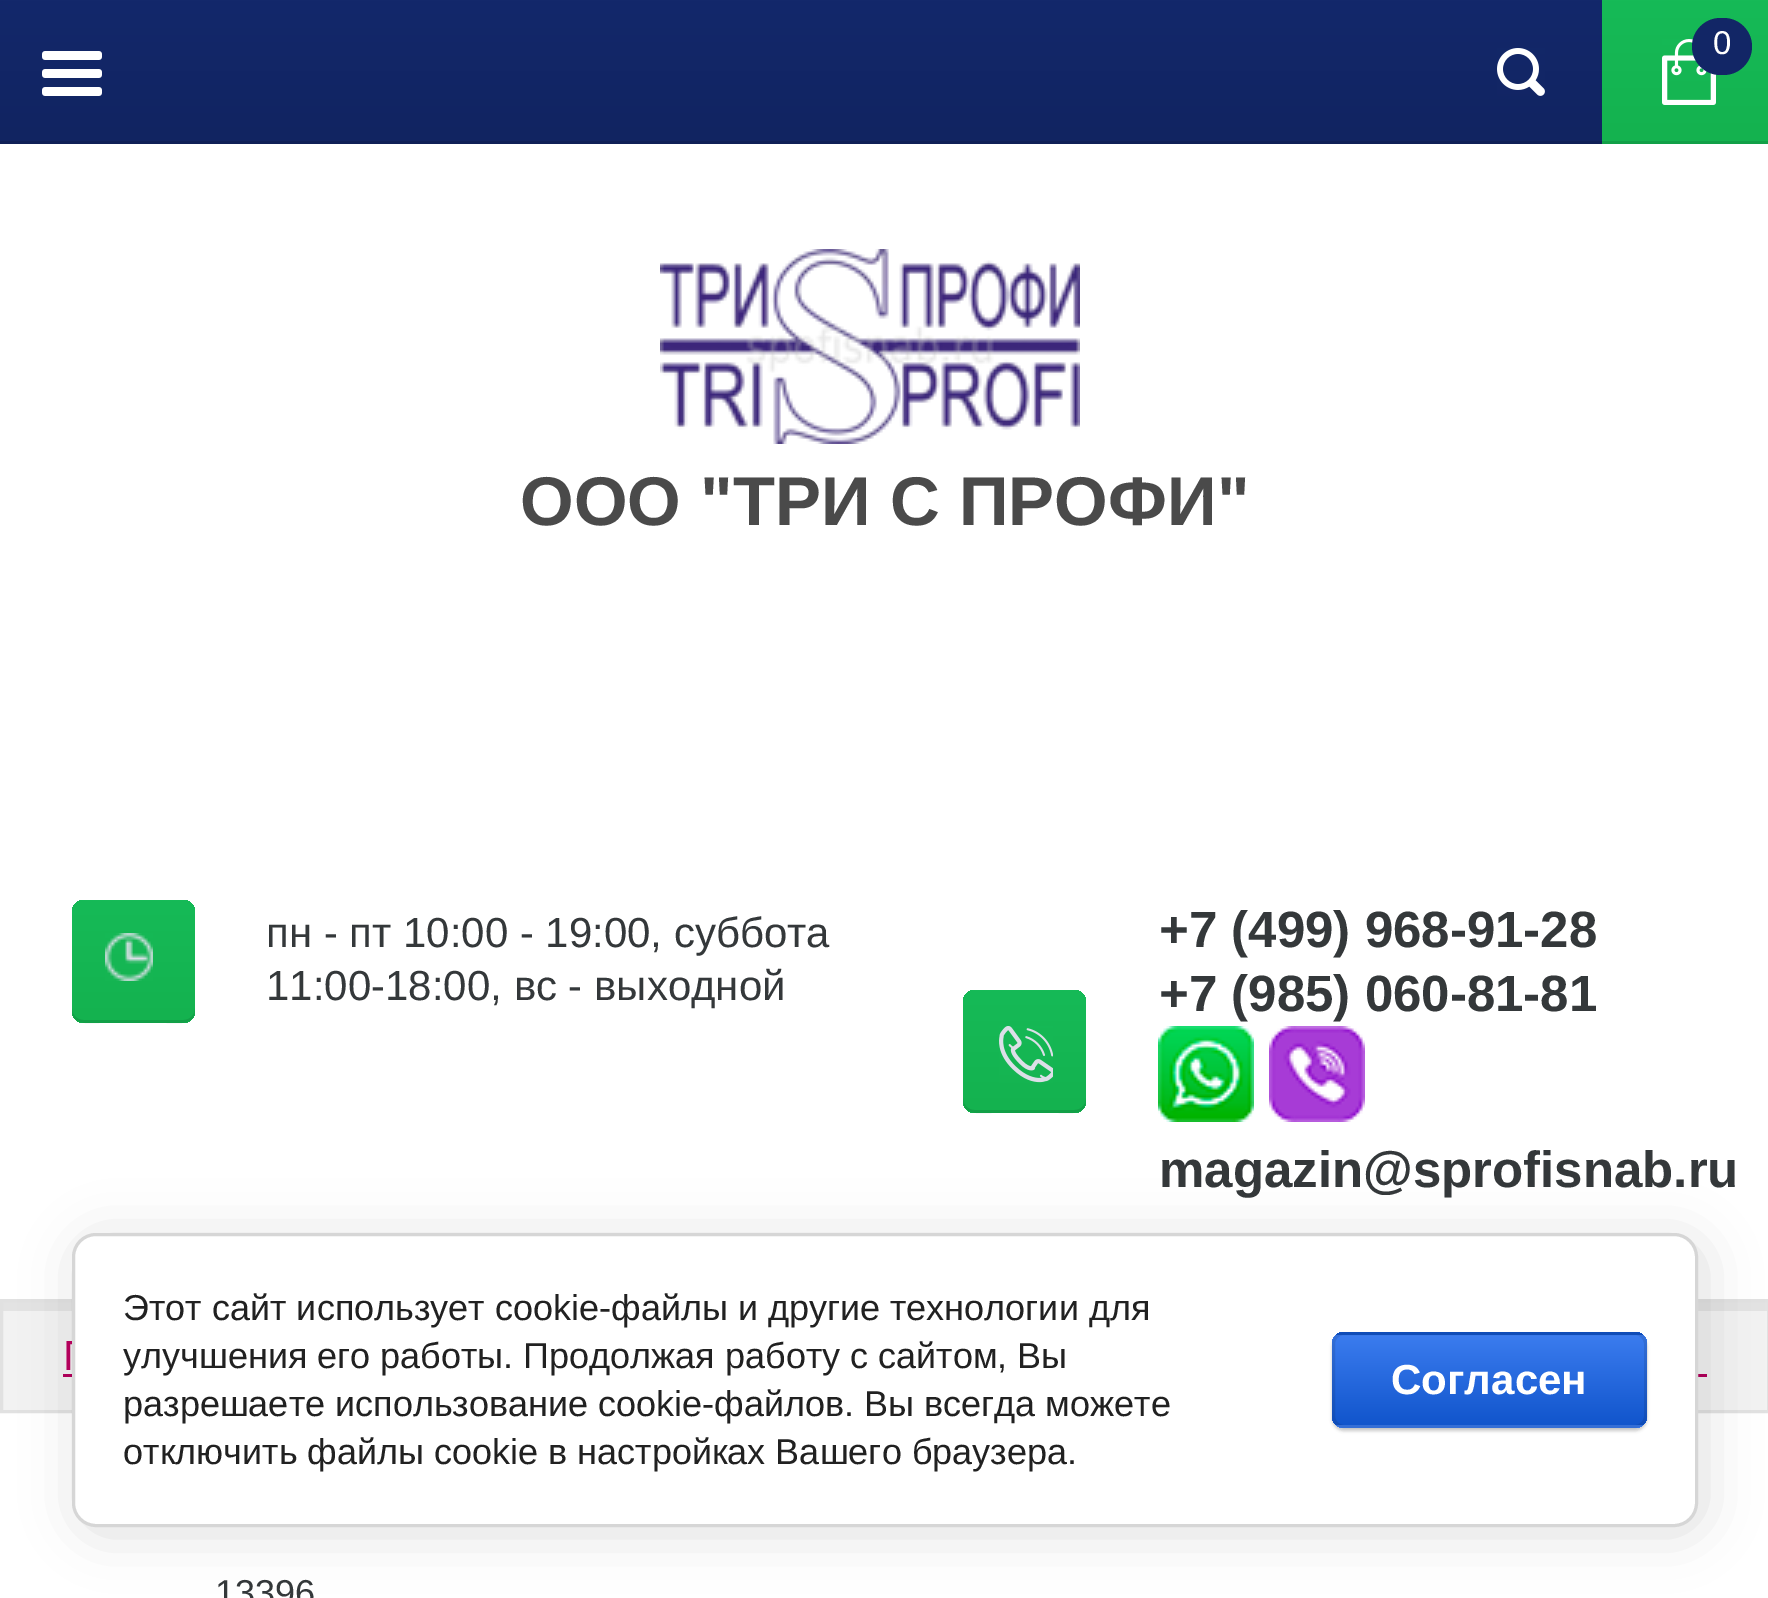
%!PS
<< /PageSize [1768 1598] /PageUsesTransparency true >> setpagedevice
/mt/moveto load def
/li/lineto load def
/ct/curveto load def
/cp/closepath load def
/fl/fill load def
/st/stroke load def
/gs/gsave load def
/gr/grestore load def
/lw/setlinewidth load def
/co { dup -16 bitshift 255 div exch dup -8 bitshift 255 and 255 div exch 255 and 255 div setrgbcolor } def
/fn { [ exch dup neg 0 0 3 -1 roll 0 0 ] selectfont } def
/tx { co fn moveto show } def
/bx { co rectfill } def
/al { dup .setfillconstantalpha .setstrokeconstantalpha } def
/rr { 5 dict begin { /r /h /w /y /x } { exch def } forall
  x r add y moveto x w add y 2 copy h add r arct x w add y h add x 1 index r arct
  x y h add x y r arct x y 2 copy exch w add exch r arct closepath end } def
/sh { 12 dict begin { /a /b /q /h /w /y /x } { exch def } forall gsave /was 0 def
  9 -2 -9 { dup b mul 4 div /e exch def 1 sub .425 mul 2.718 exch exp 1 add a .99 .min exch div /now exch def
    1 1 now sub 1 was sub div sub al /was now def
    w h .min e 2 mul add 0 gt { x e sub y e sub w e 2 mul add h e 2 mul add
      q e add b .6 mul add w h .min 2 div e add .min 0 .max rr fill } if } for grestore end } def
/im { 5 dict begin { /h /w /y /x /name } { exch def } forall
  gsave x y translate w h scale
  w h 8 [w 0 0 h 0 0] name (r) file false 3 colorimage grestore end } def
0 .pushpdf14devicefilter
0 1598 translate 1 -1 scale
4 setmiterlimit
0 0 1768 1598 16#FFFFFF bx
gs 0 0 mt 1602 0 li 1602 141 li 0 141 li cp clip newpath
<< /ShadingType 2 /ColorSpace /DeviceRGB /Coords [885 144 885 0] /Extend [true true] /Function << /FunctionType 2 /Domain [0 1] /C0 [.067 .141 .38] /C1 [.075 .157 .42] /N 1 >> >> shfill gr
0 141 1602 3 16#0F2057 bx
gs 1602 0 mt 1768 0 li 1768 141 li 1602 141 li cp clip newpath
<< /ShadingType 2 /ColorSpace /DeviceRGB /Coords [1686 144 1686 0] /Extend [true true] /Function << /FunctionType 2 /Domain [0 1] /C0 [.078 .698 .31] /C1 [.086 .729 .341] /N 1 >> >> shfill gr
1602 141 166 3 16#12A047 bx
(media/1.raw) 1662 39 54 66 im
16#122666 co
1692 18 60 57 28.5 rr fl
(media/2.raw) 1497 48 48 48 im
(media/3.raw) 42 51 60 45 im
(media/4.raw) 660 249 420 195 im
gs 72 900 123 123 12 rr clip newpath
<< /ShadingType 2 /ColorSpace /DeviceRGB /Coords [134 1023 134 900] /Extend [true true] /Function << /FunctionType 2 /Domain [0 1] /C0 [.078 .698 .31] /C1 [.086 .729 .341] /N 1 >> >> shfill gr
0.1 al
16#000000 co
72 1008 mt 72 1026 86 1023 100 1023 ct 166 1023 li 181 1023 195 1026 195 1008 ct 195 1015 190 1020 183 1020 ct 84 1020 li 77 1020 72 1015 72 1008 ct cp fl
1 al
(media/5.raw) 105 933 48 48 im
gs 963 990 123 123 12 rr clip newpath
<< /ShadingType 2 /ColorSpace /DeviceRGB /Coords [1025 1113 1025 990] /Extend [true true] /Function << /FunctionType 2 /Domain [0 1] /C0 [.078 .698 .31] /C1 [.086 .729 .341] /N 1 >> >> shfill gr
0.1 al
963 1098 mt 963 1116 977 1113 992 1113 ct 1058 1113 li 1072 1113 1086 1116 1086 1098 ct 1086 1105 1081 1110 1074 1110 ct 975 1110 li 968 1110 963 1105 963 1098 ct cp fl
1 al
(media/6.raw) 999 1026 54 57 im
(media/7.raw) 1158 1026 96 96 im
(media/8.raw) 1269 1026 96 96 im
3 1311 1764 99 16#F2F2F2 bx
3 1302 1764 9 16#E3E3E3 bx
16#E1E1E1 co
3 lw
1.5 1300.5 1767 111 rectstroke
63 1374 9 3 16#B3005B bx
1698 1374 9 3 16#B3005B bx
16#000000 co
78 1239 1626 294 24 27 .14 sh
(0) 1713 54 /LiberationSans-Regular 33 16#FFFFFF tx
(ООО "ТРИ С ПРОФИ") 520 525 /LiberationSans-Bold 69 16#4A4A4A tx
(пн - пт 10:00 - 19:00, суббота) 266 947 /LiberationSans-Regular 42 16#34383A tx
(11:00-18:00, вс - выходной) 266 1000 /LiberationSans-Regular 42 16#34383A tx
(+7 \(499\) 968-91-28) 1159 947 /LiberationSans-Bold 51 16#34383A tx
(+7 \(985\) 060-81-81) 1159 1011 /LiberationSans-Bold 51 16#34383A tx
(magazin@sprofisnab.ru) 1159 1187 /LiberationSans-Bold 51 16#34383A tx
(Г) 63 1370 /LiberationSans-Regular 42 16#B3005B tx
(13396) 215 1605 /LiberationSans-Regular 36 16#34383A tx
16#FFFFFF co
73.5 1234.5 1623 291 22.5 rr gs fl gr
16#D6D6D6 co
st
(Этот сайт использует cookie-файлы и другие технологии для) 123 1320 /LiberationSans-Regular 36 16#212121 tx
(улучшения его работы. Продолжая работу с сайтом, Вы) 123 1368 /LiberationSans-Regular 36 16#212121 tx
(разрешаете использование cookie-файлов. Вы всегда можете) 123 1416 /LiberationSans-Regular 36 16#212121 tx
(отключить файлы cookie в настройках Вашего браузера.) 123 1464 /LiberationSans-Regular 36 16#212121 tx
16#000000 co
1332 1335 315 96 12 1.5 .2 sh
gs
1332 1332 315 96 12 rr clip newpath
gs 1332 1332 mt 1647 1332 li 1647 1335 li 1332 1335 li cp clip newpath
<< /ShadingType 2 /ColorSpace /DeviceRGB /Coords [1490 1245 1490 1335] /Extend [true true] /Function << /FunctionType 2 /Domain [0 1] /C0 [.231 .486 .937] /C1 [.067 .333 .8] /N 1 >> >> shfill gr
gs 1332 1335 mt 1647 1335 li 1647 1425 li 1332 1425 li cp clip newpath
<< /ShadingType 2 /ColorSpace /DeviceRGB /Coords [1490 1335 1490 1425] /Extend [true true] /Function << /FunctionType 2 /Domain [0 1] /C0 [.231 .486 .937] /C1 [.067 .333 .8] /N 1 >> >> shfill gr
gs 1332 1425 mt 1647 1425 li 1647 1428 li 1332 1428 li cp clip newpath
<< /ShadingType 2 /ColorSpace /DeviceRGB /Coords [1490 1425 1490 1515] /Extend [true true] /Function << /FunctionType 2 /Domain [0 1] /C0 [.231 .486 .937] /C1 [.067 .333 .8] /N 1 >> >> shfill gr
gr
0.1 al
1333.5 1333.5 312 93 10.5 rr st
1 al
(Согласен) 1391 1394 /LiberationSans-Bold 42 16#FFFFFF tx
.poppdf14devicefilter showpage
